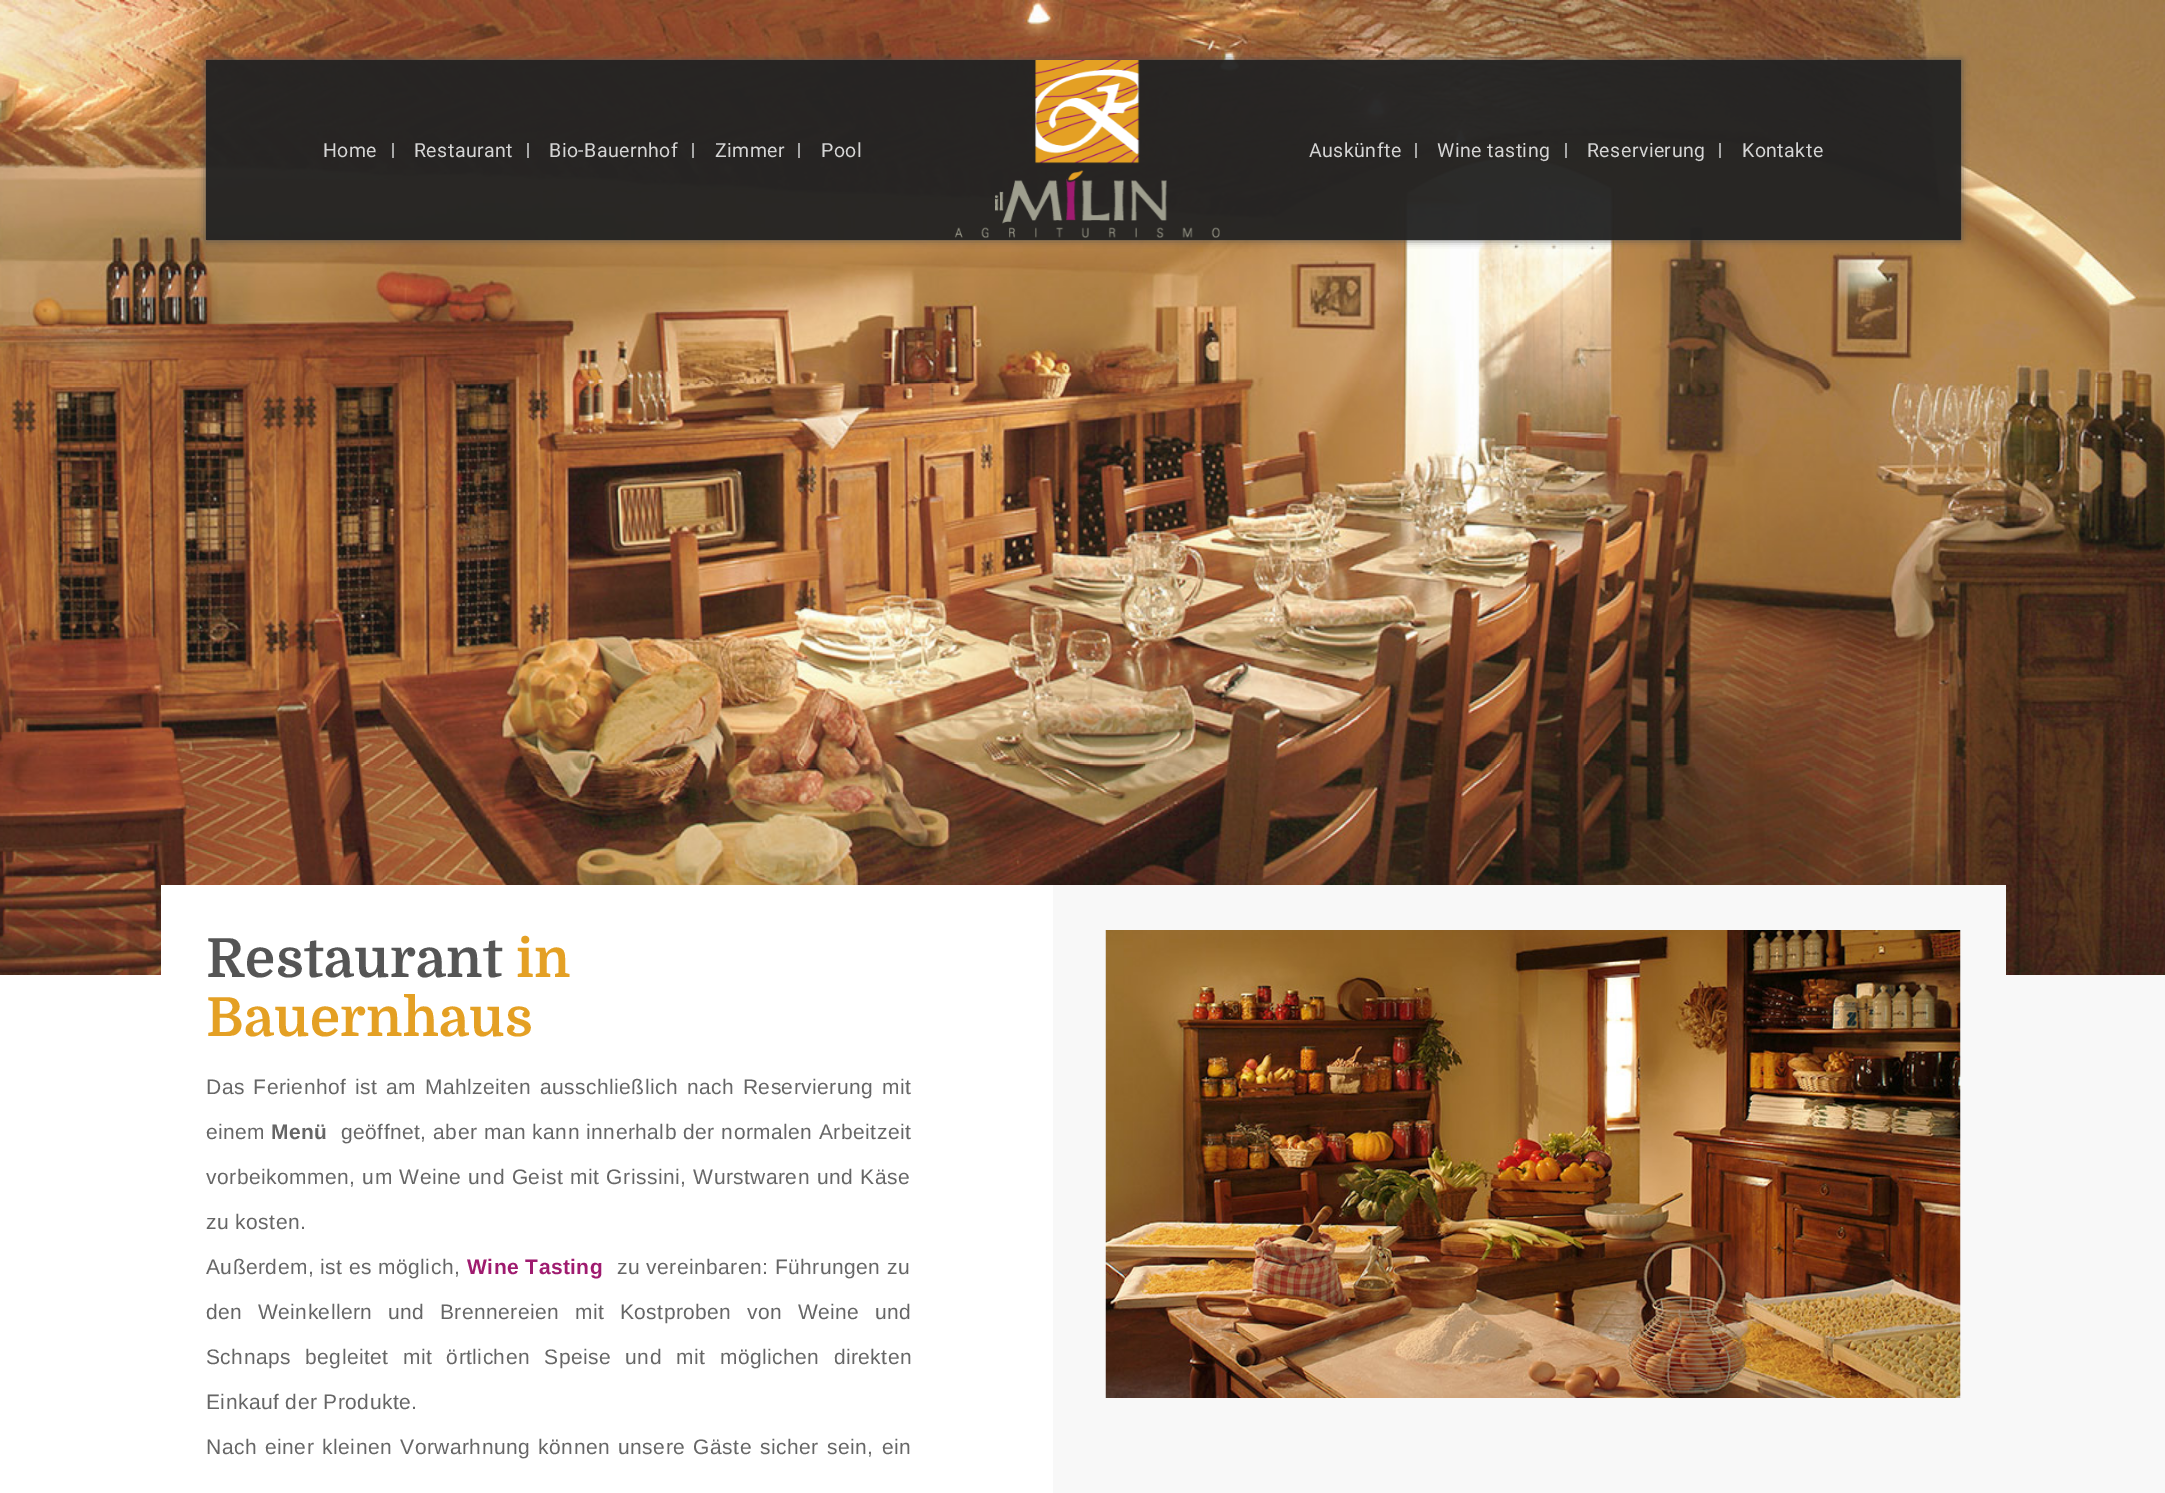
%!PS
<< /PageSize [2165 1493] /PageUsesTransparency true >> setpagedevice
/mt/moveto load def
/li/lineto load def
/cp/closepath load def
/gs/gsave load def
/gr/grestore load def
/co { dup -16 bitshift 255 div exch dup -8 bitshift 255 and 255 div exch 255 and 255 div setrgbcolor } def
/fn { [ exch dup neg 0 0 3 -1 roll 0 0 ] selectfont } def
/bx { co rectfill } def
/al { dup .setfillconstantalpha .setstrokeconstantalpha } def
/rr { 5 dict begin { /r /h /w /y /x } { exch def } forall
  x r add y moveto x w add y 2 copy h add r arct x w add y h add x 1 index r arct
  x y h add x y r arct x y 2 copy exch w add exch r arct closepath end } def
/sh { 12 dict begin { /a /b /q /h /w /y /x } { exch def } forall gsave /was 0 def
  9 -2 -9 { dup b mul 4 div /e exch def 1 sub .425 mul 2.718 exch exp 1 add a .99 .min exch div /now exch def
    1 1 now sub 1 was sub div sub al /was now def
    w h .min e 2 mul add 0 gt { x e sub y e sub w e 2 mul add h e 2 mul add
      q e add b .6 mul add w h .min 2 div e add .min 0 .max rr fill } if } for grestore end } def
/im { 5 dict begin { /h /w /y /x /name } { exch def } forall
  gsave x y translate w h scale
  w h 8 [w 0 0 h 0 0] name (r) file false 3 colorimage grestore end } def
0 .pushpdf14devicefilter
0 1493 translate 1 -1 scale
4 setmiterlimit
0 0 2165 1493 16#FFFFFF bx
(media/1.raw) 0 0 2165 975 im
gs
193 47 mt 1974 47 li 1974 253 li 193 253 li cp 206 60 mt 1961 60 li 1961 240 li 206 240 li cp eoclip newpath
16#505050 co
206 60 1755 180 0 4 1 sh
gr
0.96 al
206 60 1755 180 16#232323 bx
1 al
392 143 2 15 16#A7A7A7 bx
527 143 2 15 16#A7A7A7 bx
692 143 2 15 16#A7A7A7 bx
798 143 2 15 16#A7A7A7 bx
(media/2.raw) 954 60 266 178 im
1415 143 2 15 16#A7A7A7 bx
1565 143 2 15 16#A7A7A7 bx
1719 143 2 15 16#A7A7A7 bx
161 885 892 90 16#FFFFFF bx
1053 885 953 608 16#F8F8F8 bx
(media/3.raw) 1105 930 856 468 im
2006 975 159 518 16#F8F8F8 bx
/Roboto-Regular 19.5 fn
16#D5D5D5 co
323 157 mt .45 0 (Home) ashow
414 157 mt .45 0 (Restaurant) ashow
549 157 mt .45 0 (Bio-Bauernhof) ashow
715 157 mt .45 0 (Zimmer) ashow
821 157 mt .45 0 (Pool) ashow
1309 157 mt .45 0 (Auskünfte) ashow
1437 157 mt .45 0 (Wine tasting) ashow
1587 157 mt .45 0 (Reservierung) ashow
1742 157 mt .45 0 (Kontakte) ashow
/Domine-Bold 54 fn
16#555555 co
206 977 mt .45 0 (Restaurant) ashow
16#E4A024 co
516 977 mt .45 0 (in) ashow
206 1036 mt .45 0 (Bauernhaus) ashow
/LiberationSans-Regular 21 fn
16#666666 co
206 1094 mt 2.5 0 32 .45 0 (Das Ferienhof ist am Mahlzeiten ausschließlich nach Reservierung mit) awidthshow
206 1139 mt .45 0 (einem) ashow
/LiberationSans-Bold 21 fn
271 1139 mt .45 0 (Menü) ashow
/LiberationSans-Regular 21 fn
341 1139 mt .25 0 32 .45 0 (geöffnet, aber man kann innerhalb der normalen Arbeitzeit) awidthshow
206 1184 mt .75 0 32 .45 0 (vorbeikommen, um Weine und Geist mit Grissini, Wurstwaren und Käse) awidthshow
206 1229 mt .45 0 (zu kosten.) ashow
206 1274 mt .45 0 (Außerdem, ist es möglich,) ashow
/LiberationSans-Bold 21 fn
16#9F1B6F co
467 1274 mt .45 0 (Wine Tasting) ashow
/LiberationSans-Regular 21 fn
16#666666 co
617 1274 mt .45 0 (zu vereinbaren: Führungen zu) ashow
206 1319 mt 9.25 0 32 .45 0 (den Weinkellern und Brennereien mit Kostproben von Weine und) awidthshow
206 1364 mt 8 0 32 .45 0 (Schnaps begleitet mit örtlichen Speise und mit möglichen direkten) awidthshow
206 1409 mt .45 0 (Einkauf der Produkte.) ashow
206 1454 mt 2 0 32 .45 0 (Nach einer kleinen Vorwarhnung können unsere Gäste sicher sein, ein) awidthshow
.poppdf14devicefilter showpage
